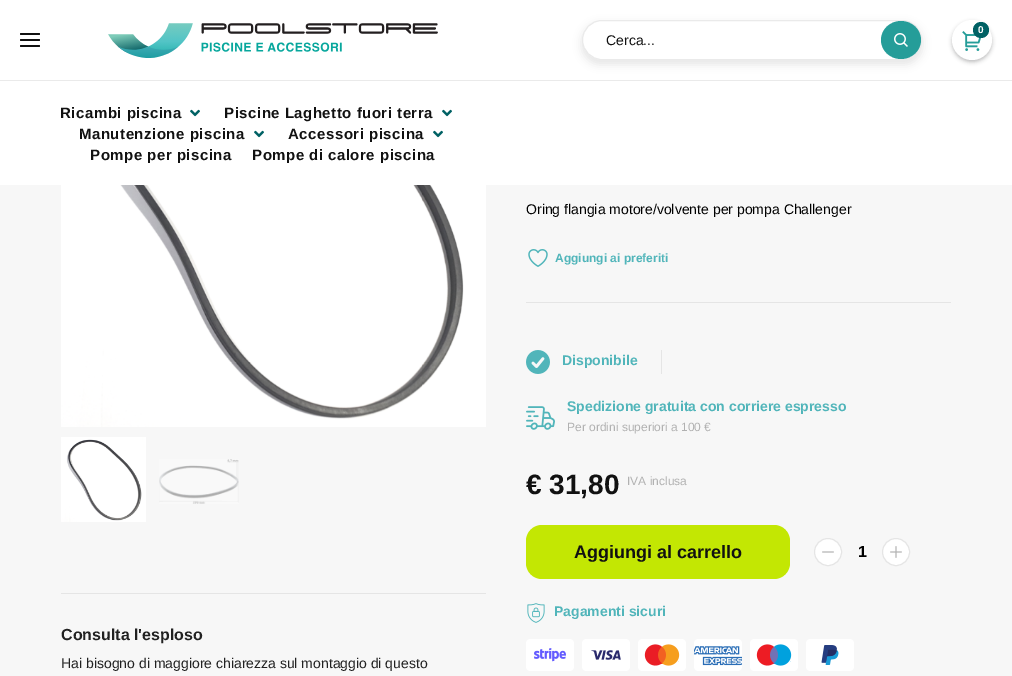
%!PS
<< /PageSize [1012 676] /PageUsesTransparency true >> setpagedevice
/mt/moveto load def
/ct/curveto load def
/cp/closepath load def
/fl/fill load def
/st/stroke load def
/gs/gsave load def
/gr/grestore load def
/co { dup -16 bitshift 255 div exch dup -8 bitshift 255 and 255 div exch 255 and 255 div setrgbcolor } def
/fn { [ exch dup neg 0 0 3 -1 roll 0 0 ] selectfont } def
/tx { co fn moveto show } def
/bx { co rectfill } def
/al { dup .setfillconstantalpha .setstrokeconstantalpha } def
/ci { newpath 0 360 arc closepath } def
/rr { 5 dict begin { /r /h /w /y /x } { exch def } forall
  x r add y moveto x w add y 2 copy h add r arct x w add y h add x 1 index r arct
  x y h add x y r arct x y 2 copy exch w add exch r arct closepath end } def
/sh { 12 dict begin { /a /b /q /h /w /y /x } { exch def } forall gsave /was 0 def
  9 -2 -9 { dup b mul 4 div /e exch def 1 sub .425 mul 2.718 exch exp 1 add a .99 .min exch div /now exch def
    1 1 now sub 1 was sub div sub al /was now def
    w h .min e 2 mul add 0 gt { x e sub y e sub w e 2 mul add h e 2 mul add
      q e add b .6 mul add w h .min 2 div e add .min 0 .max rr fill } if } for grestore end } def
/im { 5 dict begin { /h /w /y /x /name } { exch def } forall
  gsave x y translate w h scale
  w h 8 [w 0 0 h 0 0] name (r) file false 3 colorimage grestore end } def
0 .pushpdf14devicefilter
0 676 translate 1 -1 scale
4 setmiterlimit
0 0 1012 676 16#F7F7F7 bx
0 0 1012 185 16#FFFFFF bx
16#111111 co
20 33 20 2 1 rr fl
20 39 20 2 1 rr fl
20 45 20 2 1 rr fl
(media/1.raw) 108 23 330 35 im
16#202124 co
952 22 40 40 20 2 .28 sh
16#FFFFFF co
972 40 20 ci fl
(media/2.raw) 962 31 20 20 im
16#006164 co
981 30 8 ci fl
16#202124 co
581 23 342 42 21 4 .11 sh
16#FFFFFF co
582.5 20.5 339 39 19.5 rr gs fl gr
16#EAEAEA co
st
16#259D99 co
901 21 mt 912 21 921 29.5 921 40 ct 921 50.5 912 59 901 59 ct 890 59 881 50.5 881 40 ct 881 29.5 890 21 901 21 ct cp fl
(media/3.raw) 894 33 14 14 im
0 80 1012 1 16#EAEAEA bx
(media/4.raw) 190 109 10 8 im
(media/4.raw) 442 109 10 8 im
(media/4.raw) 254 130 10 8 im
(media/4.raw) 433 130 10 8 im
(media/5.raw) 528 249 20 18 im
526 302 425 1 16#E5E5E5 bx
661 350 1 24 16#E5E5E5 bx
(media/6.raw) 526 350 24 24 im
(media/7.raw) 526 406 29 24 im
16#C3E703 co
526 525 264 54 16 rr fl
16#FFFFFF co
828 552 13.5 ci gs fl gr
16#E5E5E5 co
st
(media/8.raw) 822 551 12 2 im
16#FFFFFF co
896 552 13.5 ci gs fl gr
16#E5E5E5 co
st
(media/9.raw) 890 546 12 12 im
(media/10.raw) 527 603 18 20 im
(media/11.raw) 526 639 48 32 im
(media/12.raw) 582 639 48 32 im
(media/13.raw) 638 639 48 32 im
(media/14.raw) 694 639 48 32 im
(media/15.raw) 750 639 48 32 im
(media/16.raw) 806 639 48 32 im
(media/17.raw) 61 185 425 242 im
(media/18.raw) 61 437 85 85 im
(media/19.raw) 159 459 80 45 im
61 593 425 1 16#E5E5E5 bx
(0) 978 33 /LiberationSans-Bold 10 16#FFFFFF tx
(Cerca...) 606 45 /LiberationSans-Regular 14 16#111111 tx
/LiberationSans-Bold 15 fn
60 118 mt .5 0 (Ricambi piscina) ashow
224 118 mt .5 0 (Piscine Laghetto fuori terra) ashow
79 139 mt .5 0 (Manutenzione piscina) ashow
288 139 mt .5 0 (Accessori piscina) ashow
90 160 mt .5 0 (Pompe per piscina) ashow
252 160 mt .5 0 (Pompe di calore piscina) ashow
(Oring flangia motore/volvente per pompa Challenger) 526 214 /LiberationSans-Regular 14 16#000000 tx
(Aggiungi ai preferiti) 555 262 /LiberationSans-Bold 12 16#51B5BA tx
(Disponibile) 562 365 /LiberationSans-Bold 14 16#51B5BA tx
(Spedizione gratuita con corriere espresso) 567 411 /LiberationSans-Bold 14 16#51B5BA tx
(Per ordini superiori a 100 €) 567 431 /LiberationSans-Regular 12 16#B1B1B1 tx
(€ 31,80) 526 494 /LiberationSans-Bold 28 16#111111 tx
(IVA inclusa) 627 485 /LiberationSans-Regular 12 16#B1B1B1 tx
(Aggiungi al carrello) 574 558 /LiberationSans-Bold 18 16#111111 tx
(1) 858 557 /LiberationSans-Bold 16 16#000000 tx
(Pagamenti sicuri) 554 616 /LiberationSans-Bold 14 16#51B5BA tx
(Consulta l'esploso) 61 640 /LiberationSans-Bold 16 16#212121 tx
(Hai bisogno di maggiore chiarezza sul montaggio di questo) 61 668 /LiberationSans-Regular 14 16#212121 tx
.poppdf14devicefilter showpage
